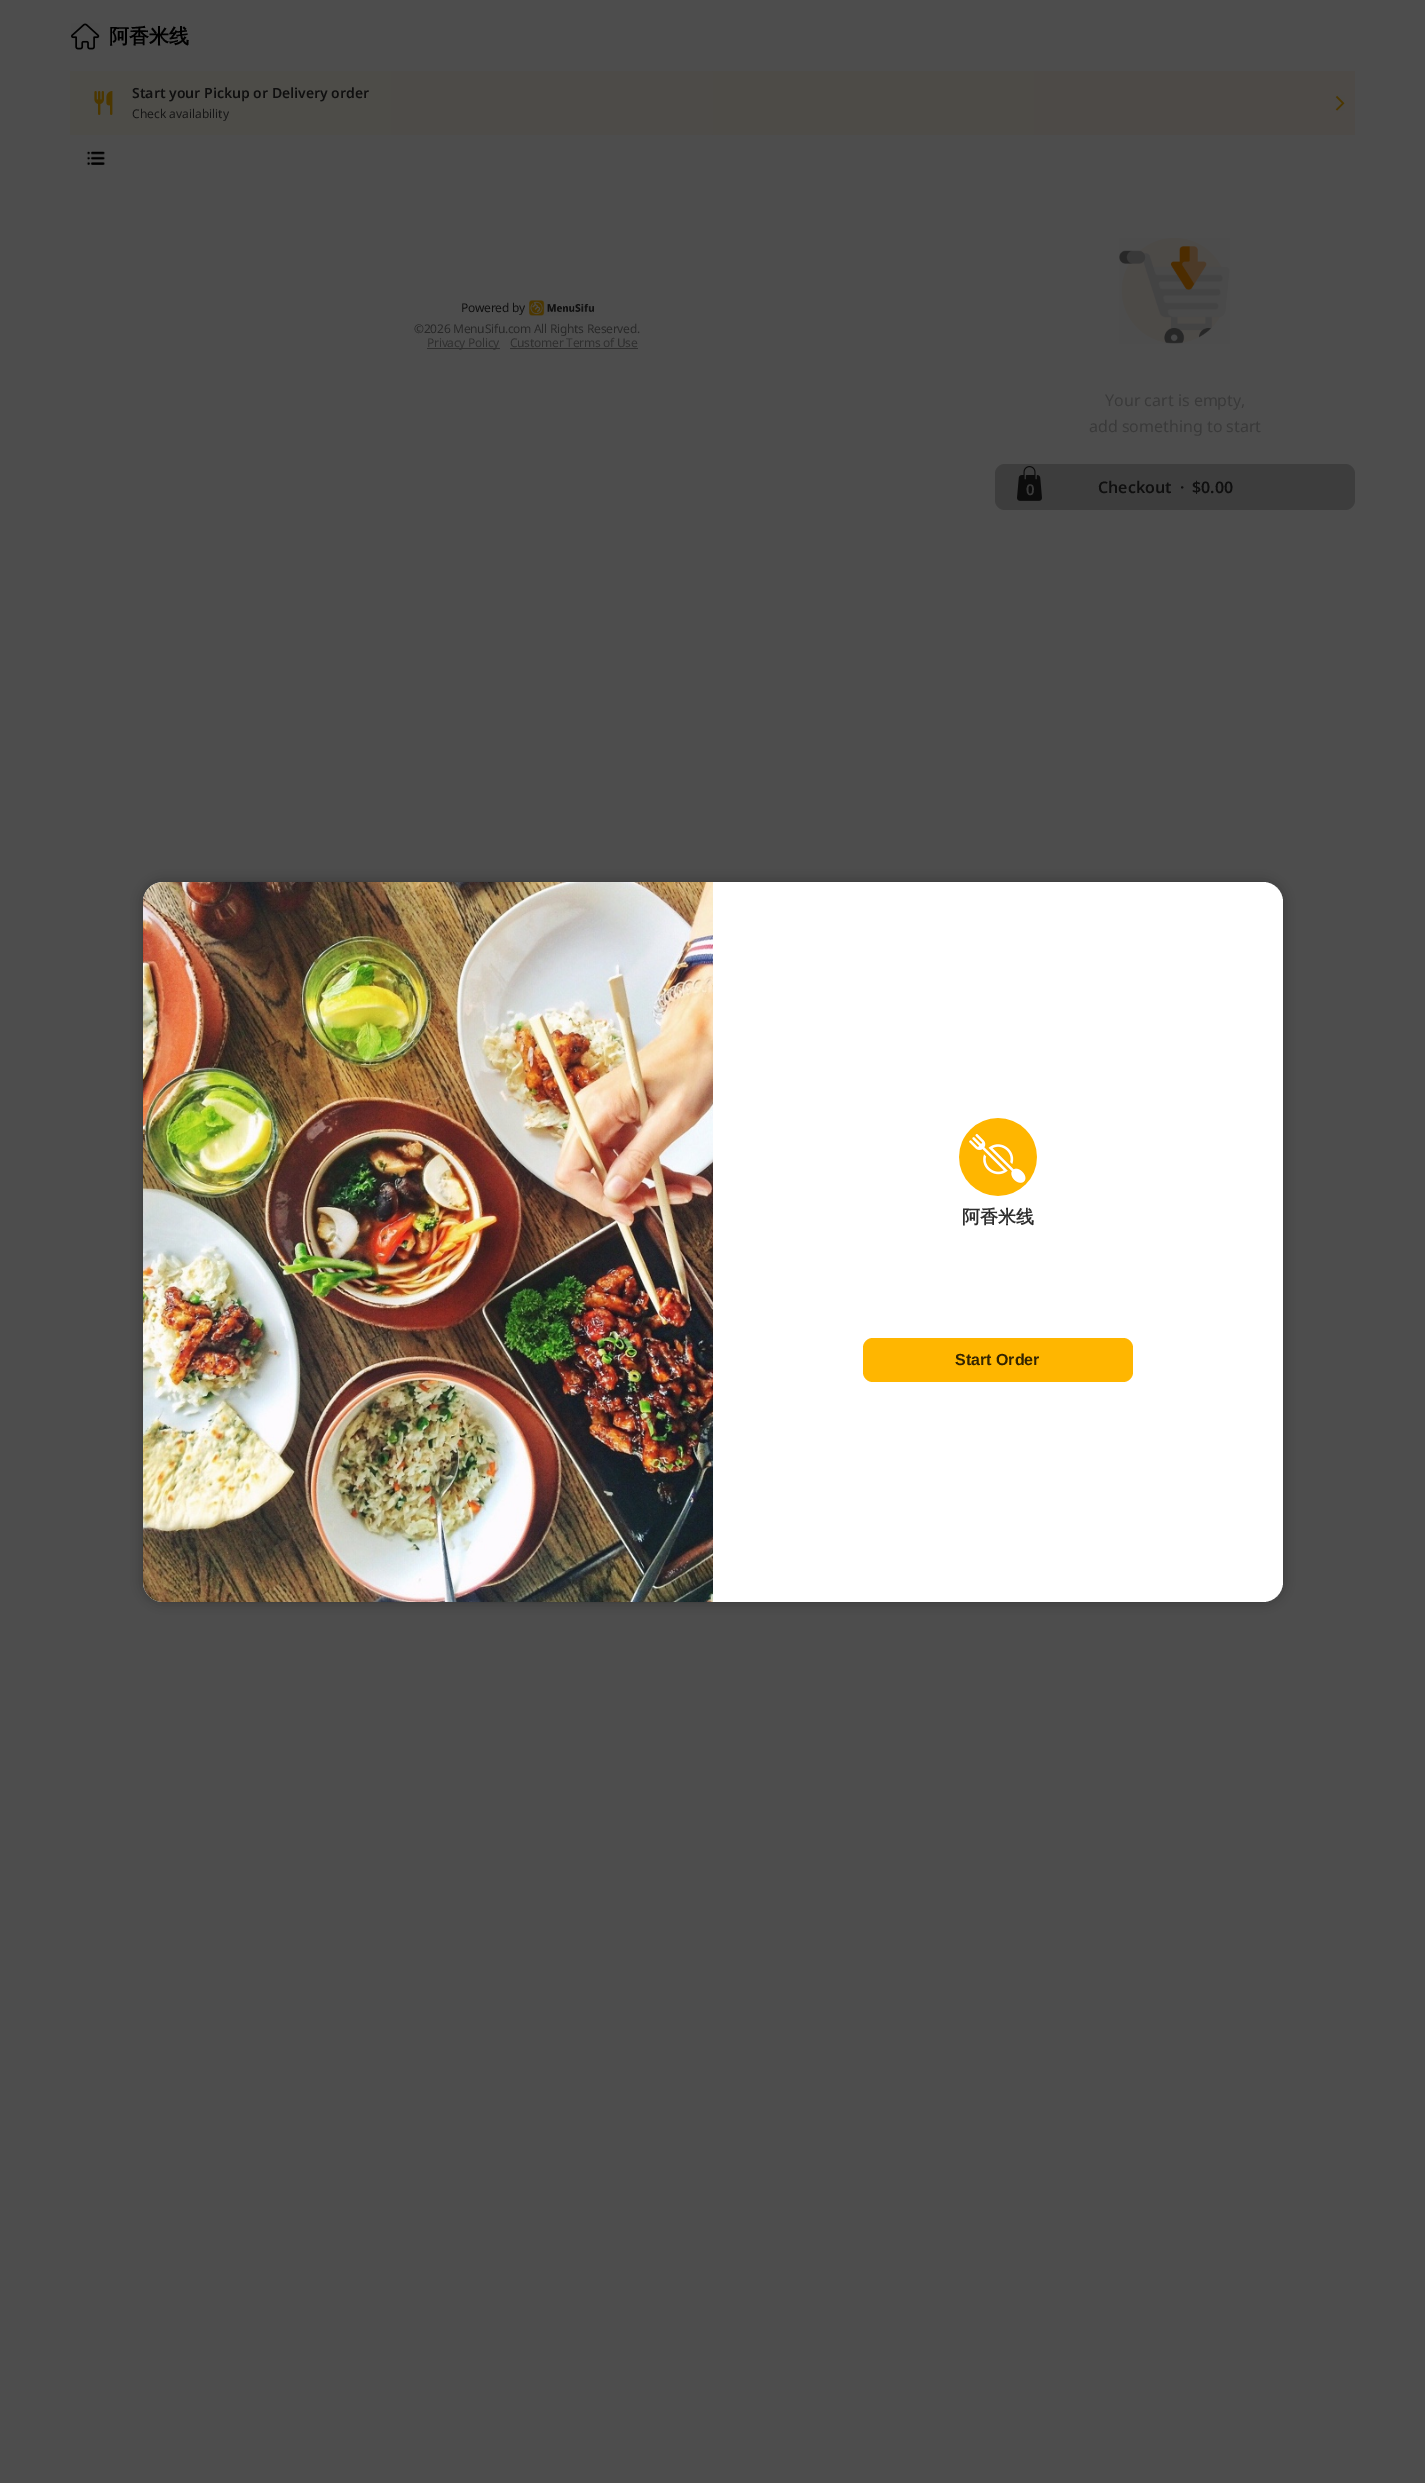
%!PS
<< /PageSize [1425 2483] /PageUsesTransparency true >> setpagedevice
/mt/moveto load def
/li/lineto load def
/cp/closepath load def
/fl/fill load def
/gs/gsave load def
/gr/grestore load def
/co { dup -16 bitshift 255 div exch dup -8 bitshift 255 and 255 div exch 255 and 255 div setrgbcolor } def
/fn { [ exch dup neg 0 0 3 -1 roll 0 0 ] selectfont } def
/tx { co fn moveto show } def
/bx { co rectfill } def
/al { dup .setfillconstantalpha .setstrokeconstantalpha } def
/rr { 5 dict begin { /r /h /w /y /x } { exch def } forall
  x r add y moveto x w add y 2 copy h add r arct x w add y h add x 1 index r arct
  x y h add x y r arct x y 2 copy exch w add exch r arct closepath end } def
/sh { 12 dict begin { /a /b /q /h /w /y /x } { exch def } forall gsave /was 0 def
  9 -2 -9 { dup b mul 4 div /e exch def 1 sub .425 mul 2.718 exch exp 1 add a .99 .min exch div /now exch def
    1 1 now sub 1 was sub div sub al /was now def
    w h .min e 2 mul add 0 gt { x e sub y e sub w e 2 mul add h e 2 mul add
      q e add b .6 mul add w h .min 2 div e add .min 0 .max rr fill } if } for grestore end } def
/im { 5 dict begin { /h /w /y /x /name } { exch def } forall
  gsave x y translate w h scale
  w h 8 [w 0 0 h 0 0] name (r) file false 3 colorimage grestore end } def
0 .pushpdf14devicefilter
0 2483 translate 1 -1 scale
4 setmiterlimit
0 0 1425 2483 16#4D4D4D bx
(media/1.raw) 71 23 29 27 im
gs 70 71 mt 1355 71 li 1355 135 li 70 135 li cp clip newpath
<< /ShadingType 2 /ColorSpace /DeviceRGB /Coords [70 103 1355 103] /Extend [true true] /Function << /FunctionType 2 /Domain [0 1] /C0 [.302 .298 .282] /C1 [.302 .29 .278] /N 1 >> >> shfill gr
(media/2.raw) 94 91 19 24 im
(media/3.raw) 1335 95 10 16 im
(media/4.raw) 86 151 19 14 im
(media/5.raw) 529 300 65 16 im
427 348 73 1 16#2E2E2E bx
510 348 128 1 16#2E2E2E bx
(media/6.raw) 1119 238 111 106 im
16#3D3D3D co
995 464 360 46 10 rr fl
(media/7.raw) 1017 466 25 35 im
16#000000 co
143 882 1140 720 20 6 .3 sh
16#FFFFFF co
143 882 1140 720 20 rr fl
(media/8.raw) 143 882 570 720 im
(media/9.raw) 959 1118 78 78 im
16#FFB600 co
863 1338 270 44 10 rr fl
(阿香米线) 109 43 /WenQuanYiZenHei-Bold 20 16#000000 tx
(Start your Pickup or Delivery order) 132 98 /NotoSans-SemiBold 14 16#0F0F0F tx
(Check availability) 132 118 /NotoSans-Regular 12 16#151515 tx
16#0F0F0F co
461 312 mt -.25 0 (Powered by) ashow
16#272727 co
414 333 mt -.25 0 (©2026 MenuSifu.com All Rights Reserved.) ashow
16#2E2E2E co
427 347 mt -.25 0 (Privacy Policy) ashow
510 347 mt -.25 0 (Customer Terms of Use) ashow
(Your cart is empty,) 1105 406 /NotoSans-Regular 16 16#393939 tx
(add something to start) 1089 432 /NotoSans-Regular 16 16#393939 tx
(0) 1026 495 /NotoSans-SemiBold 15 16#393939 tx
(Checkout) 1098 493 /NotoSans-SemiBold 16 16#0F0F0F tx
(·) 1180 493 /NotoSans-SemiBold 16 16#0F0F0F tx
($0.00) 1192 493 /NotoSans-SemiBold 16 16#0F0F0F tx
(阿香米线) 962 1223 /WenQuanYiZenHei-Bold 18 16#2E2E2E tx
(Start Order) 955 1365 /LiberationSans-Bold 16 16#332400 tx
.poppdf14devicefilter showpage
